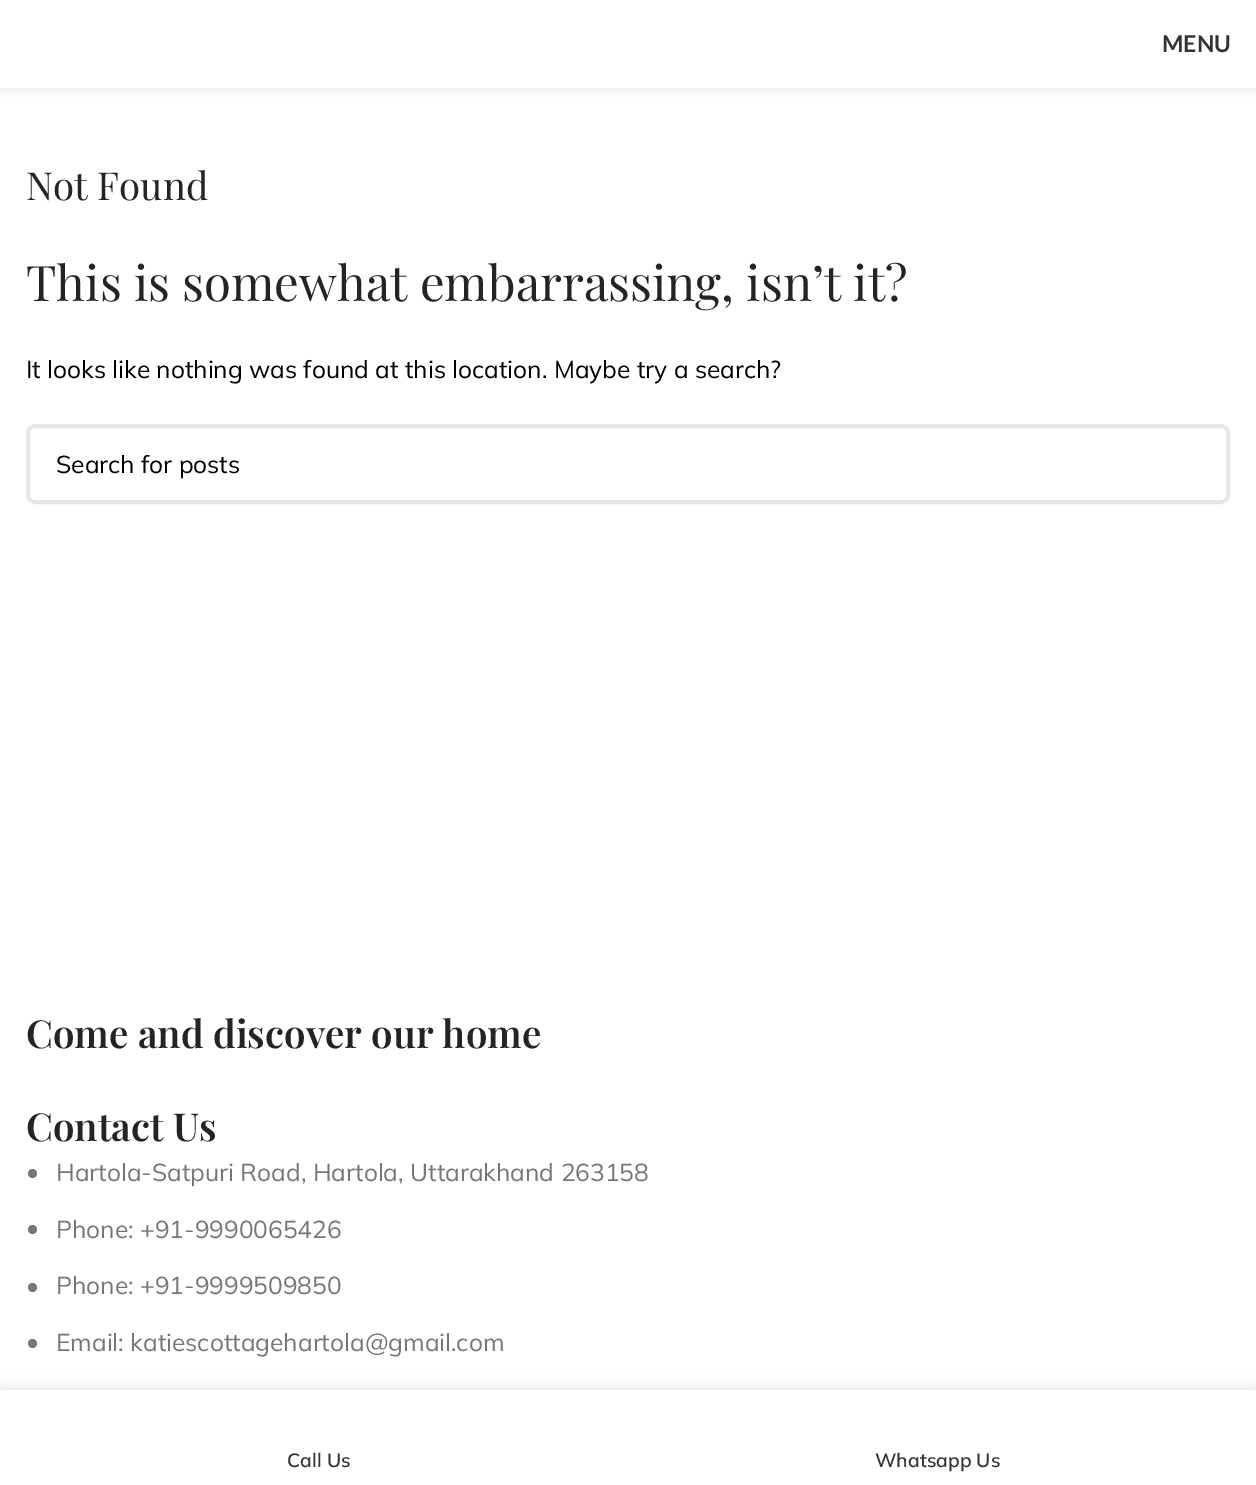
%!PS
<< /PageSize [1256 1485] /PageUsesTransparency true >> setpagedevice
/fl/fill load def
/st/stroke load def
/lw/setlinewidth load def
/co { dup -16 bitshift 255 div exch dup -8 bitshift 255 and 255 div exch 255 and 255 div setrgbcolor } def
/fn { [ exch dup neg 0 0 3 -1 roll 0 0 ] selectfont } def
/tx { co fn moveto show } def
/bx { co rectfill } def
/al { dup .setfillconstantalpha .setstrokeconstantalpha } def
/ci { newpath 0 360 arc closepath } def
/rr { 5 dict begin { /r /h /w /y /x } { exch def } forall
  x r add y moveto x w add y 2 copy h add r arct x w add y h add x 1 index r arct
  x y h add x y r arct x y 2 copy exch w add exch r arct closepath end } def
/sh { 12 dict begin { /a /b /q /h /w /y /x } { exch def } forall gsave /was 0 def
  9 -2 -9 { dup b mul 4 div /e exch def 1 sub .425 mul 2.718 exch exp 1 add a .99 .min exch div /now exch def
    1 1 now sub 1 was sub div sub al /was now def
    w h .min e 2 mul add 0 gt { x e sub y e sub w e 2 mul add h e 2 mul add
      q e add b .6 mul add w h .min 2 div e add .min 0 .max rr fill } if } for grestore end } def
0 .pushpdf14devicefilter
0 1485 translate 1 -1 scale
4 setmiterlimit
0 0 1256 1485 16#FFFFFF bx
16#000000 co
0 2 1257 87 0 7 .1 sh
0 0 1256 88 16#FFFFFF bx
16#E6E6E6 co
4 lw
28 426 1200 76 7 rr st
16#767676 co
32.5 1173.5 4.5 ci fl
32.5 1229.5 4.5 ci fl
32.5 1287.5 4.5 ci fl
32.5 1343.5 4.5 ci fl
16#000000 co
0 1390 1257 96 0 8 .12 sh
0 1390 1256 95 16#FFFFFF bx
(MENU) 1162 52 /Lato-Bold 23 16#333333 tx
(Not Found) 26 200 /PlayfairDisplay-Regular 38.5 16#242424 tx
(This is somewhat embarrassing, isn’t it?) 26 301 /PlayfairDisplay-Regular 49 16#242424 tx
(It looks like nothing was found at this location. Maybe try a search?) 26 378 /Mulish-Regular 24.5 16#000000 tx
(Search for posts) 56 473 /Mulish-Regular 24.5 16#000000 tx
(Come and discover our home) 26 1048 /PlayfairDisplay-SemiBold 38.5 16#242424 tx
(Contact Us) 26 1141 /PlayfairDisplay-SemiBold 38.5 16#242424 tx
(Hartola-Satpuri Road, Hartola, Uttarakhand 263158) 56 1181 /Mulish-Regular 24.5 16#767676 tx
(Phone: +91-9990065426) 56 1238 /Mulish-Regular 24.5 16#767676 tx
(Phone: +91-9999509850) 56 1294 /Mulish-Regular 24.5 16#767676 tx
(Email: katiescottagehartola@gmail.com) 56 1351 /Mulish-Regular 24.5 16#767676 tx
(Call Us) 287 1467 /Mulish-SemiBold 19.25 16#333333 tx
(Whatsapp Us) 875 1467 /Mulish-SemiBold 19.25 16#333333 tx
.poppdf14devicefilter showpage
